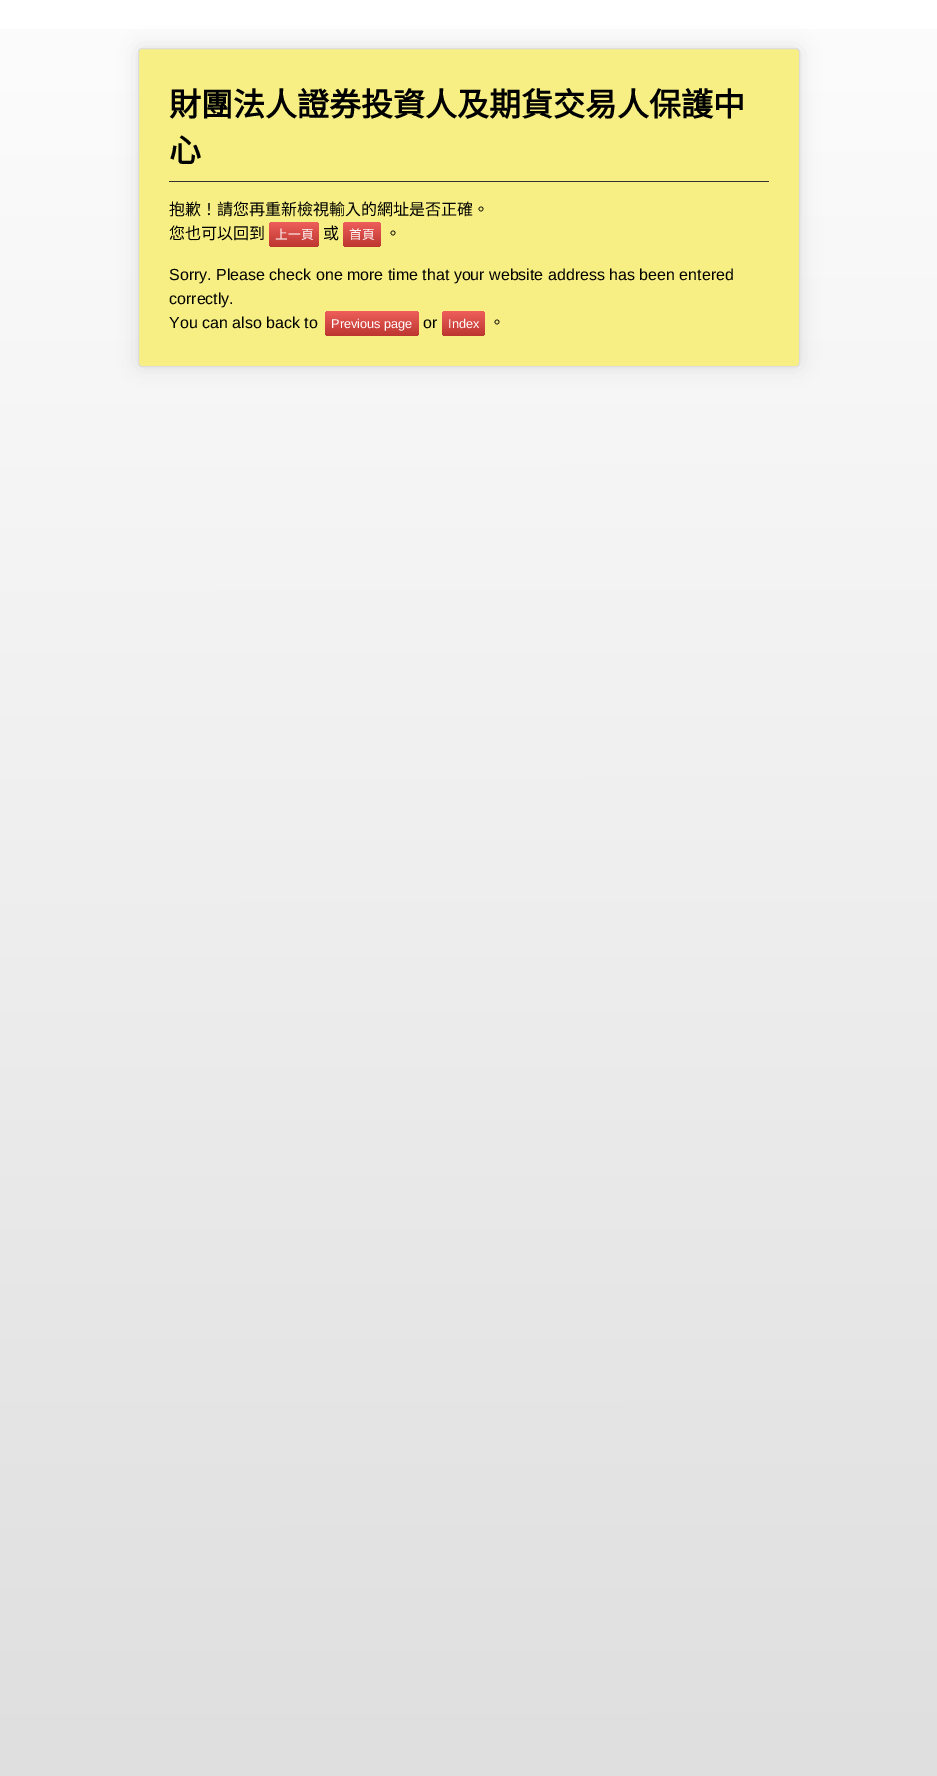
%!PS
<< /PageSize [937 1776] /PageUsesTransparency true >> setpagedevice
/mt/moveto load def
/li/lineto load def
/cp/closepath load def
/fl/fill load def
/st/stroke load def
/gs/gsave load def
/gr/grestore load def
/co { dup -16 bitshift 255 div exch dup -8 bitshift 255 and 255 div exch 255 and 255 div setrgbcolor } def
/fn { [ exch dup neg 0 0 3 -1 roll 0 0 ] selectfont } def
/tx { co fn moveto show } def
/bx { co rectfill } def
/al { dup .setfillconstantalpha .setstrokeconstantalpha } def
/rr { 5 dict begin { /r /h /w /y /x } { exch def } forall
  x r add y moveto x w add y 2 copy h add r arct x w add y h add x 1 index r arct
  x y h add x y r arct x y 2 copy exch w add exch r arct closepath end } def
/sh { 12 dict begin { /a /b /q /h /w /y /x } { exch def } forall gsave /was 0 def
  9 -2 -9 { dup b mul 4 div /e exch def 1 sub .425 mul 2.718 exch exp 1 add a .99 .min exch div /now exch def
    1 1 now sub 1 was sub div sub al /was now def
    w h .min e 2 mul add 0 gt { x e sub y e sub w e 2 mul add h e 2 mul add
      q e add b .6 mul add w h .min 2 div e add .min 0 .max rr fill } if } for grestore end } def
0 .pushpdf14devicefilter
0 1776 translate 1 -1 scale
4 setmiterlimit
0 0 937 1776 16#FFFFFF bx
gs 0 29 mt 937 29 li 937 1776 li 0 1776 li cp clip newpath
<< /ShadingType 2 /ColorSpace /DeviceRGB /Coords [468 0 469 1776] /Extend [true true] /Function << /FunctionType 2 /Domain [0 1] /C0 [.992 .992 .992] /C1 [.875 .875 .875] /N 1 >> >> shfill gr
16#DDDDDD co
138 48 662 319 4 10 1 sh
16#F7EF83 co
138.5 48.5 661 318 3.5 rr gs fl gr
16#DDDDDD co
st
169 181 600 1 16#333333 bx
gs 269 222 50 25 4 rr clip newpath
<< /ShadingType 2 /ColorSpace /DeviceRGB /Coords [294 222 294 247] /Extend [true true] /Function << /FunctionType 2 /Domain [0 1] /C0 [.933 .373 .357] /C1 [.741 .212 .184] /N 1 >> >> shfill gr
gs 343 222 38 25 4 rr clip newpath
<< /ShadingType 2 /ColorSpace /DeviceRGB /Coords [362 222 362 247] /Extend [true true] /Function << /FunctionType 2 /Domain [0 1] /C0 [.933 .373 .357] /C1 [.741 .212 .184] /N 1 >> >> shfill gr
gs 325 311 94 25 4 rr clip newpath
<< /ShadingType 2 /ColorSpace /DeviceRGB /Coords [372 311 372 336] /Extend [true true] /Function << /FunctionType 2 /Domain [0 1] /C0 [.933 .373 .357] /C1 [.741 .212 .184] /N 1 >> >> shfill gr
gs 442 311 43 25 4 rr clip newpath
<< /ShadingType 2 /ColorSpace /DeviceRGB /Coords [464 311 464 336] /Extend [true true] /Function << /FunctionType 2 /Domain [0 1] /C0 [.933 .373 .357] /C1 [.741 .212 .184] /N 1 >> >> shfill gr
(財團法人證券投資人及期貨交易人保護中) 169 116 /NotoSansCJKTC-Bold 32 16#000000 tx
(心) 169 162 /NotoSansCJKTC-Bold 32 16#000000 tx
(抱歉！請您再重新檢視輸入的網址是否正確。) 169 215 /NotoSansCJKTC-Regular 16 16#000000 tx
(您也可以回到) 169 239 /NotoSansCJKTC-Regular 16 16#000000 tx
(上一頁) 275 239 /NotoSansCJKTC-Regular 12.75 16#FFFFFF tx
(或) 323 239 /NotoSansCJKTC-Regular 16 16#000000 tx
(首頁) 349 239 /NotoSansCJKTC-Regular 12.75 16#FFFFFF tx
(。) 385 239 /NotoSansCJKTC-Regular 16 16#000000 tx
(Sorry. Please check one more time that your website address has been entered) 169 280 /LiberationSans-Regular 16 16#000000 tx
(correctly.) 169 304 /LiberationSans-Regular 16 16#000000 tx
(You can also back to) 169 328 /LiberationSans-Regular 16 16#000000 tx
(Previous page) 331 328 /LiberationSans-Regular 12.75 16#FFFFFF tx
(or) 423 328 /LiberationSans-Regular 16 16#000000 tx
(Index) 448 328 /LiberationSans-Regular 12.75 16#FFFFFF tx
(。) 489 328 /NotoSansCJKTC-Regular 16 16#000000 tx
.poppdf14devicefilter showpage
